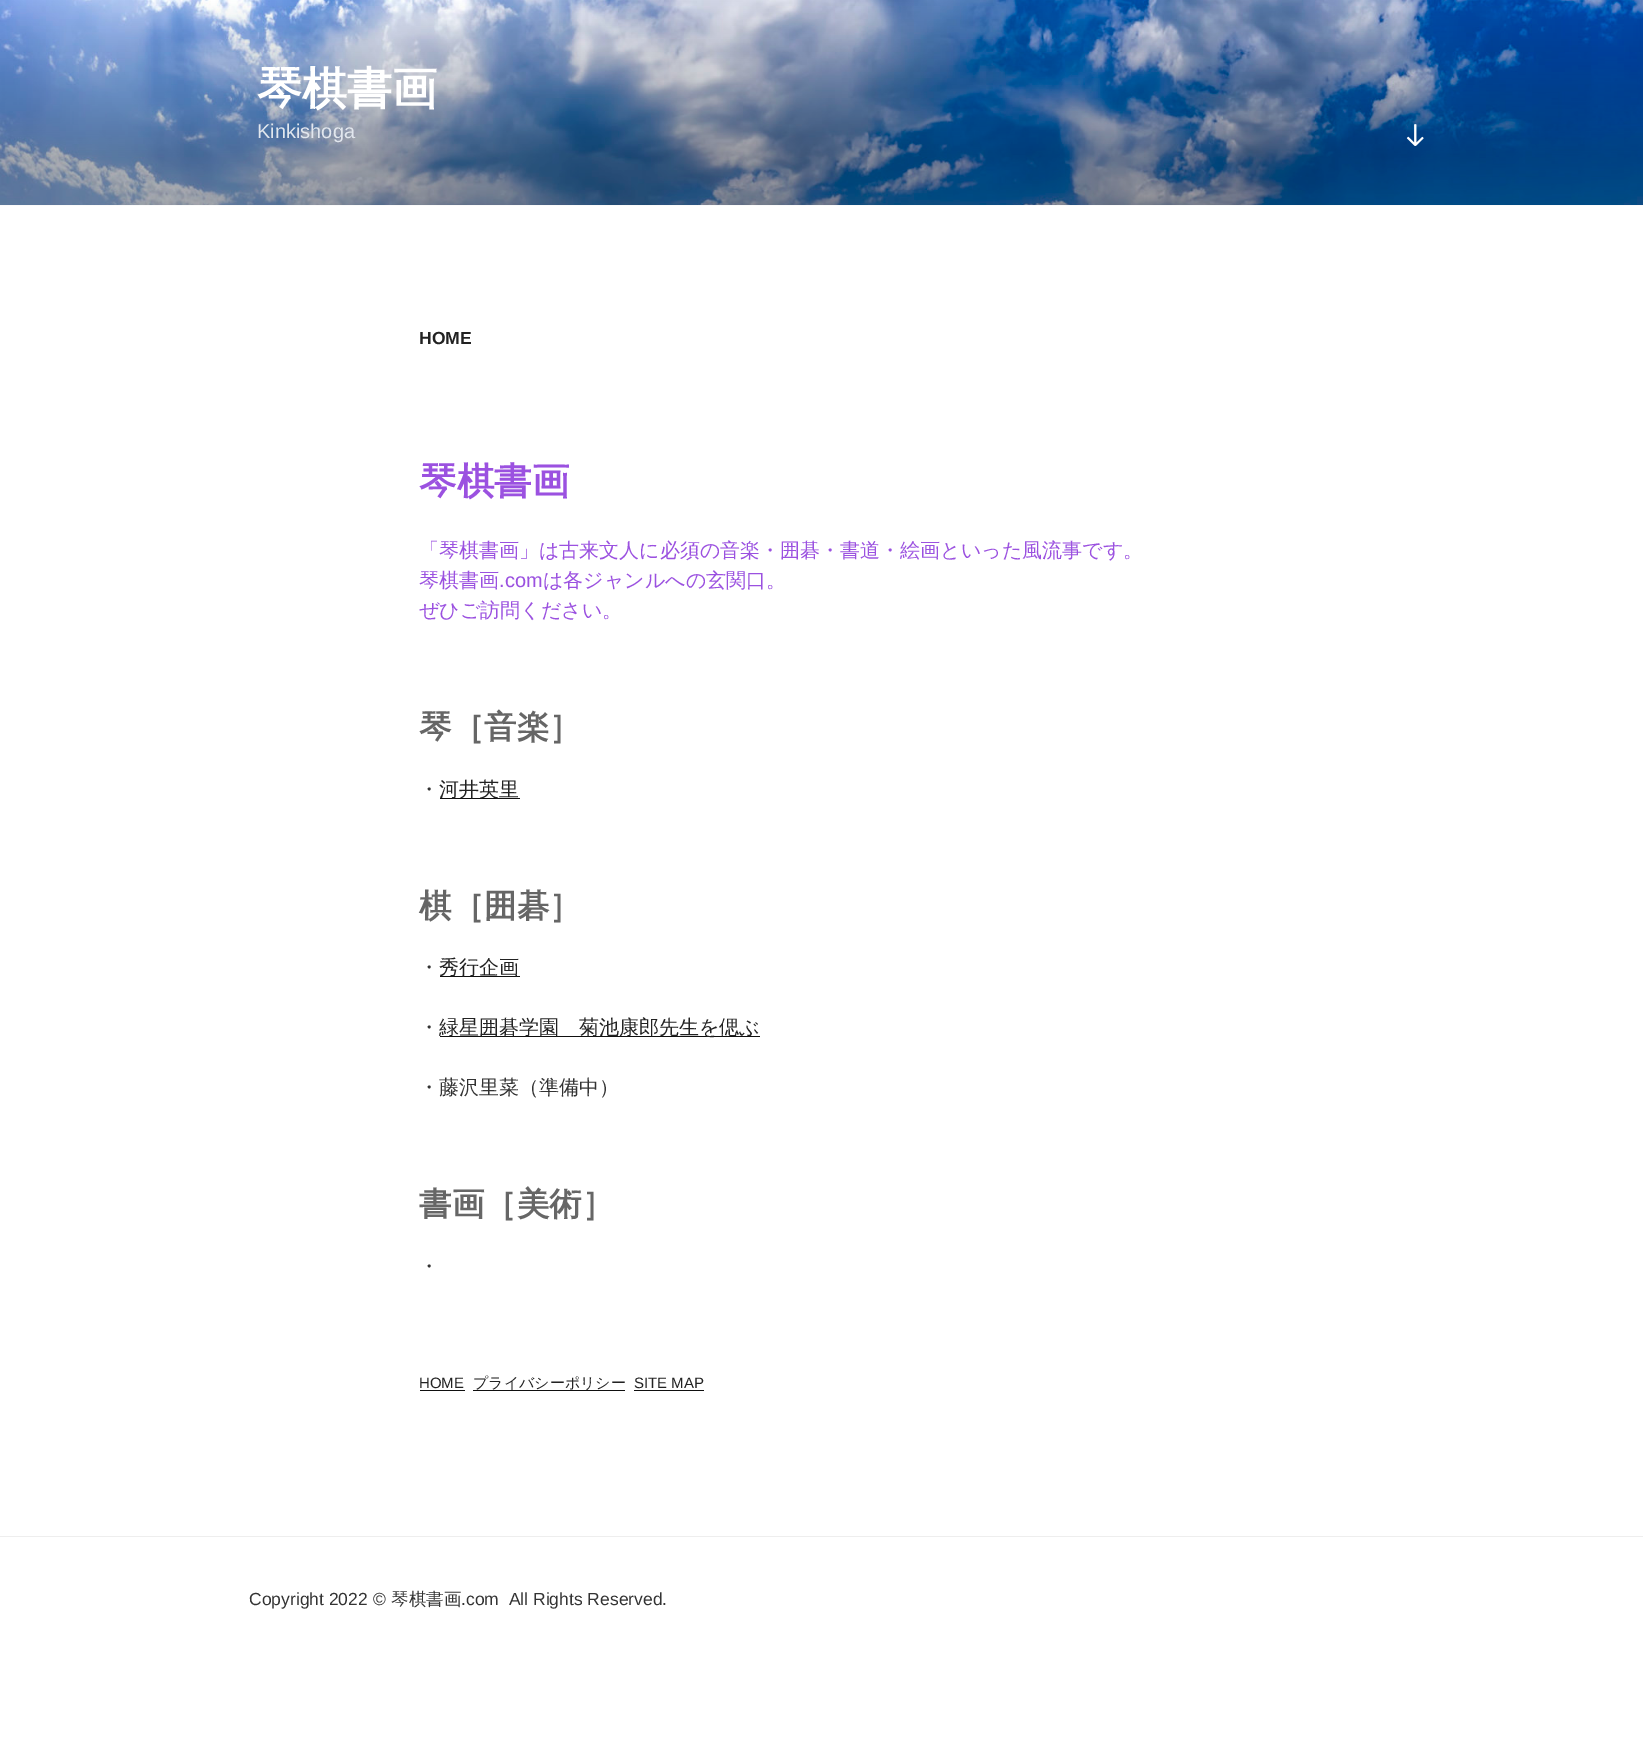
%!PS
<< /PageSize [1643 1758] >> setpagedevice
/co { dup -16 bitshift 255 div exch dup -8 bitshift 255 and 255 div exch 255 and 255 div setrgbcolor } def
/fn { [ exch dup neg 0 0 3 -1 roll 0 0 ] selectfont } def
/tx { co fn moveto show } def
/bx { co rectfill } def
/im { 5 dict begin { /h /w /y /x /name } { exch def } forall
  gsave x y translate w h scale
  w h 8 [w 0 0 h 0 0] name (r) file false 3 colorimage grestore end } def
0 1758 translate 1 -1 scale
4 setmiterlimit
0 0 1643 1758 16#FFFFFF bx
0 205 1643 1 16#FAFAFA bx
(media/1.raw) 0 0 1643 205 im
(media/2.raw) 1406 124 18 22 im
440 798 80 1 16#0F0F0F bx
440 976 80 1 16#0F0F0F bx
440 1036 320 1 16#0F0F0F bx
420 1390 45 1 16#0F0F0F bx
473 1390 152 1 16#0F0F0F bx
634 1390 70 1 16#0F0F0F bx
0 1536 1643 1 16#EEEEEE bx
(琴棋書画) 257 104 /WenQuanYiZenHei-Bold 45 16#FFFFFF tx
(Kinkishoga) 257 138 /LiberationSans-Regular 20 16#E2E7EE tx
(HOME) 419 344 /LiberationSans-Bold 17.5 16#222222 tx
(琴棋書画) 419 494 /WenQuanYiZenHei-Bold 37.5 16#9B51E0 tx
(「琴棋書画」は古来文人に必須の音楽・囲碁・書道・絵画といった風流事です。) 419 557 /WenQuanYiZenHei-Medium 20 16#9B51E0 tx
(琴棋書画) 419 587 /WenQuanYiZenHei-Medium 20 16#9B51E0 tx
(.com) 499 587 /LiberationSans-Regular 20 16#9B51E0 tx
(は各ジャンルへの玄関口。) 543 587 /WenQuanYiZenHei-Medium 20 16#9B51E0 tx
(ぜひご訪問ください。) 419 617 /WenQuanYiZenHei-Medium 20 16#9B51E0 tx
(琴［音楽］) 419 738 /WenQuanYiZenHei-Bold 32.5 16#666666 tx
(・) 419 796 /WenQuanYiZenHei-Medium 20 16#333333 tx
(河井英里) 439 796 /WenQuanYiZenHei-Medium 20 16#222222 tx
(棋［囲碁］) 419 917 /WenQuanYiZenHei-Bold 32.5 16#666666 tx
(・) 419 974 /WenQuanYiZenHei-Medium 20 16#333333 tx
(秀行企画) 439 974 /WenQuanYiZenHei-Medium 20 16#222222 tx
(・) 419 1034 /WenQuanYiZenHei-Medium 20 16#333333 tx
(緑星囲碁学園　菊池康郎先生を偲ぶ) 439 1034 /WenQuanYiZenHei-Medium 20 16#222222 tx
(・藤沢里菜（準備中）) 419 1094 /WenQuanYiZenHei-Medium 20 16#333333 tx
(書画［美術］) 419 1215 /WenQuanYiZenHei-Bold 32.5 16#666666 tx
(・) 419 1273 /WenQuanYiZenHei-Medium 20 16#333333 tx
(HOME) 419 1388 /LiberationSans-Regular 15 16#222222 tx
(プライバシーポリシー) 473 1388 /WenQuanYiZenHei-Medium 15 16#222222 tx
(SITE MAP) 634 1388 /LiberationSans-Regular 15 16#222222 tx
(Copyright 2022 ©) 249 1605 /LiberationSans-Regular 17.5 16#333333 tx
(琴棋書画) 391 1605 /WenQuanYiZenHei-Medium 17.5 16#333333 tx
(.com  All Rights Reserved.) 461 1605 /LiberationSans-Regular 17.5 16#333333 tx
showpage
